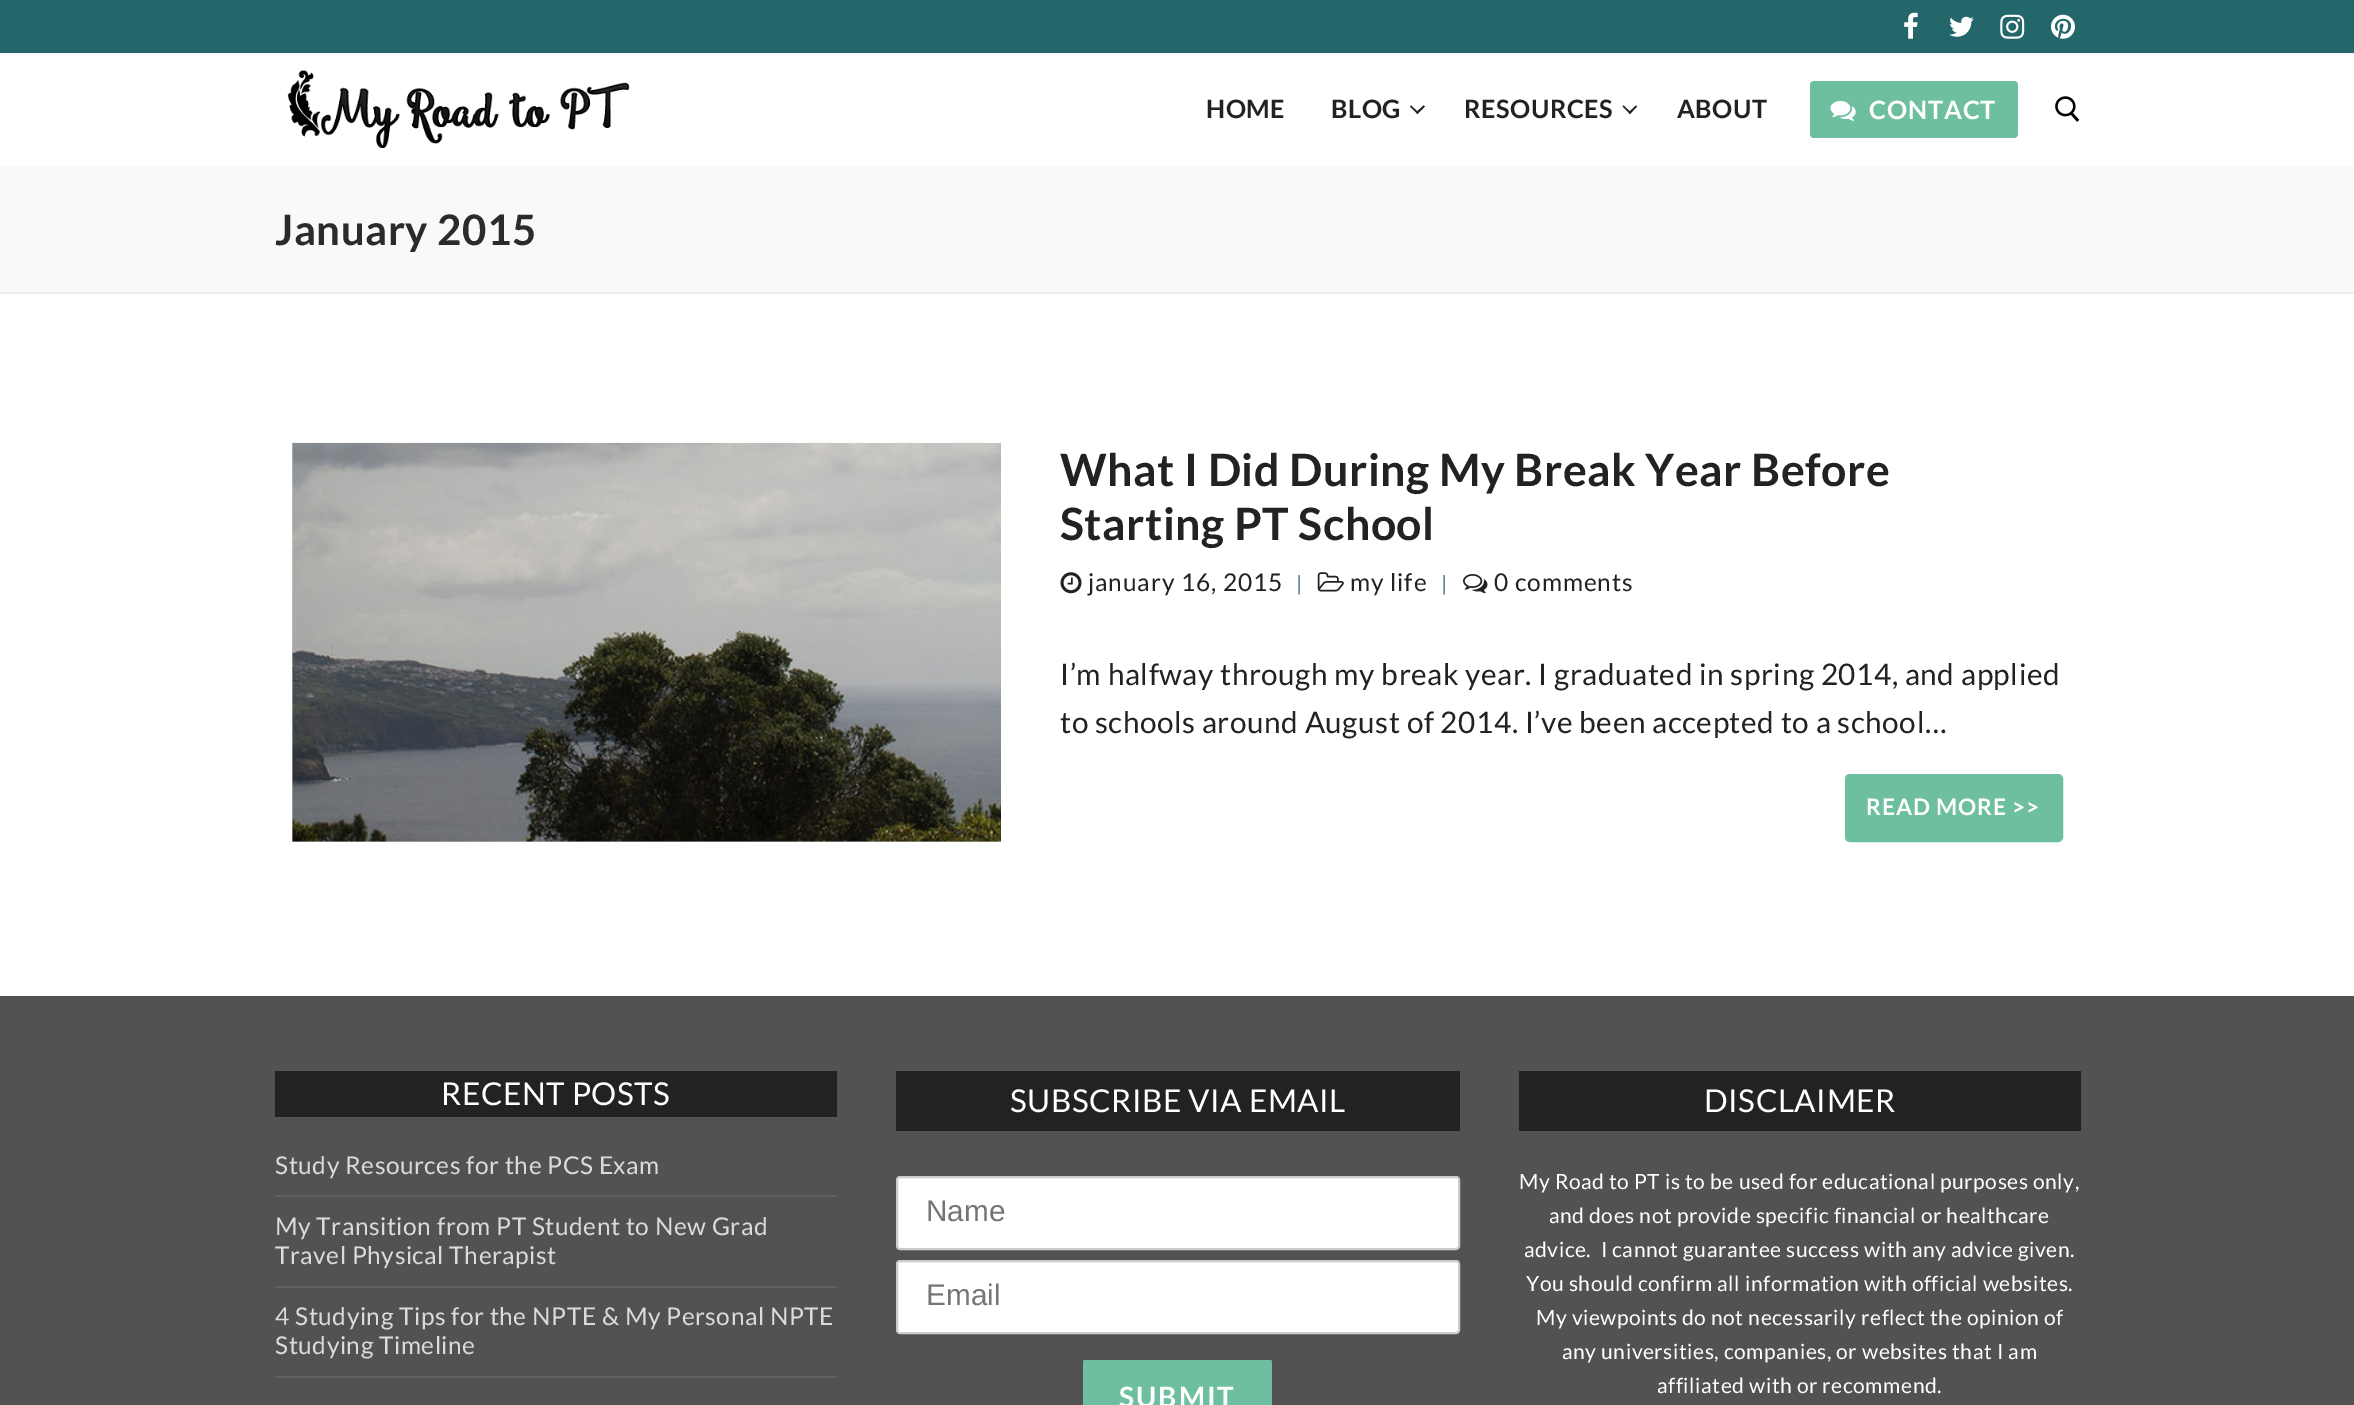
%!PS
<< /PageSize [2354 1405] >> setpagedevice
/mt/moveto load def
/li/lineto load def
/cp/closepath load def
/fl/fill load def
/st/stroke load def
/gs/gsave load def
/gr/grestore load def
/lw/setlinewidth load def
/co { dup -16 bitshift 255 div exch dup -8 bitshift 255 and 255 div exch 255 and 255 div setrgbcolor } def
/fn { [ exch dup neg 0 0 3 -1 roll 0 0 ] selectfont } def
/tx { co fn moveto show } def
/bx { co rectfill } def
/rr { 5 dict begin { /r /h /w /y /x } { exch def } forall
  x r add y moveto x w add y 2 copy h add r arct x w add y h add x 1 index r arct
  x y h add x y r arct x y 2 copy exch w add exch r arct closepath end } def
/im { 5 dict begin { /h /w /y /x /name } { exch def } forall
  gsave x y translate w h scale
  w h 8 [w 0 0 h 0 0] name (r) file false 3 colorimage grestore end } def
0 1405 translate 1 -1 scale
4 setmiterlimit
0 0 2354 1405 16#FFFFFF bx
0 0 2354 53 16#24676B bx
(media/1.raw) 1904 12 14 27 im
(media/2.raw) 1949 16 25 21 im
(media/3.raw) 2000 14 25 25 im
(media/4.raw) 2051 14 24 25 im
(media/5.raw) 287 70 343 78 im
16#222222 co
1417.5 114 mt 1410 106.5 li 1411 105.5 li 1418.5 112.5 li cp fl
1417.5 114 mt 1416 112.5 li 1423.5 105.5 li 1425 106.5 li cp fl
1630 114 mt 1622.5 106.5 li 1623.5 105.5 li 1631 112.5 li cp fl
1630 114 mt 1628.5 112.5 li 1636 105.5 li 1637 106.5 li cp fl
16#6DBF9F co
1810 81 208 57 4 rr fl
(media/6.raw) 1830 100 26 21 im
(media/7.raw) 2055 96 25 26 im
0 166 2354 126 16#F9F9F9 bx
0 292 2354 2 16#EEEEEE bx
292 443 709 399 16#D5D5D5 bx
(media/8.raw) 292 442 709 400 im
(media/9.raw) 1060 572 22 22 im
(media/10.raw) 1317 572 27 20 im
(media/11.raw) 1463 574 25 20 im
16#6DBF9F co
1847.5 776.5 213 63 2.5 rr gs fl gr
5 lw
st
0 996 2354 409 16#525252 bx
275 1071 562 46 16#222222 bx
275 1195 562 2 16#606060 bx
275 1286 562 2 16#606060 bx
275 1376 562 2 16#606060 bx
896 1071 564 60 16#222222 bx
16#FFFFFF co
897 1177 562 72 3 rr gs fl gr
16#CCCCCC co
2 lw
st
16#FFFFFF co
897 1261 562 72 3 rr gs fl gr
16#CCCCCC co
st
16#6DBF9F co
1083 1360 189 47 2 rr fl
1519 1071 562 60 16#222222 bx
/Lato-Bold 25.25 fn
1206 118 mt .53 0 (HOME) ashow
1331 118 mt .53 0 (BLOG) ashow
1464 118 mt .53 0 (RESOURCES) ashow
1677 118 mt .53 0 (ABOUT) ashow
16#FFFFFF co
1869 119 mt .9 0 (CONTACT) ashow
/Lato-Bold 42 fn
16#2B2B2B co
275 245 mt .53 0 (January 2015) ashow
/Lato-Bold 44.6 fn
16#222222 co
1060 486 mt .53 0 (What I Did During My Break Year Before) ashow
1060 540 mt .53 0 (Starting PT School) ashow
/Lato-Regular 24.5 fn
1088 591 mt .9 0 (january 16, 2015) ashow
/Lato-Regular 21 fn
16#24676B co
1296 591 mt .9 0 (|) ashow
/Lato-Regular 24.5 fn
16#222222 co
1350 591 mt .9 0 (my life) ashow
/Lato-Regular 21 fn
16#24676B co
1441 591 mt .9 0 (|) ashow
/Lato-Regular 24.5 fn
16#222222 co
1494 591 mt .9 0 (0 comments) ashow
/Lato-Regular 29.75 fn
1060 685 mt .53 0 (I’m halfway through my break year. I graduated in spring 2014, and applied) ashow
1060 733 mt .53 0 (to schools around August of 2014. I’ve been accepted to a school…) ashow
/Lato-Bold 22.75 fn
16#FFFFFF co
1866 815 mt .9 0 (READ MORE >>) ashow
/Lato-Regular 31.5 fn
441 1105 mt .53 0 (RECENT POSTS) ashow
/Lato-Regular 24.5 fn
16#DBDBDB co
275 1174 mt .53 0 (Study Resources for the PCS Exam) ashow
275 1235 mt .53 0 (My Transition from PT Student to New Grad) ashow
275 1264 mt .53 0 (Travel Physical Therapist) ashow
275 1325 mt .53 0 (4 Studying Tips for the NPTE & My Personal NPTE) ashow
275 1354 mt .53 0 (Studying Timeline) ashow
/Lato-Regular 31.5 fn
16#FFFFFF co
1010 1112 mt .53 0 (SUBSCRIBE VIA EMAIL) ashow
(Name) 926 1221 /LiberationSans-Regular 29.75 16#757575 tx
(Email) 926 1305 /LiberationSans-Regular 29.75 16#757575 tx
/Lato-Bold 28 fn
16#FFFFFF co
1119 1407 mt 2 0 (SUBMIT) ashow
/Lato-Regular 31.5 fn
1704 1112 mt .53 0 (DISCLAIMER) ashow
/Lato-Regular 21 fn
1519 1189 mt .53 0 (My Road to PT is to be used for educational purposes only,) ashow
1549 1223 mt .53 0 (and does not provide specific financial or healthcare) ashow
1524 1257 mt .53 0 (advice.  I cannot guarantee success with any advice given.) ashow
1526 1291 mt .53 0 (You should confirm all information with official websites.) ashow
1536 1325 mt .53 0 (My viewpoints do not necessarily reflect the opinion of) ashow
1562 1359 mt .53 0 (any universities, companies, or websites that I am) ashow
1657 1393 mt .53 0 (affiliated with or recommend.) ashow
showpage
